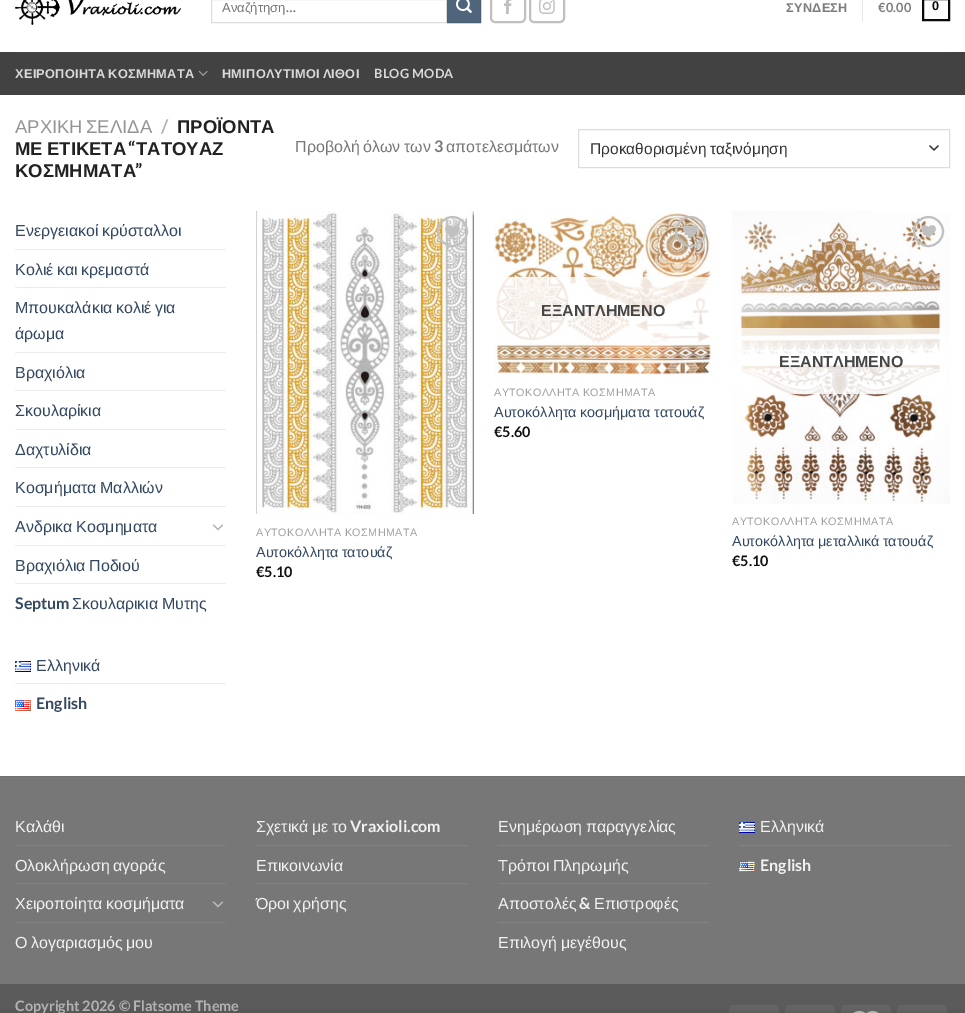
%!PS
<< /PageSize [965 1013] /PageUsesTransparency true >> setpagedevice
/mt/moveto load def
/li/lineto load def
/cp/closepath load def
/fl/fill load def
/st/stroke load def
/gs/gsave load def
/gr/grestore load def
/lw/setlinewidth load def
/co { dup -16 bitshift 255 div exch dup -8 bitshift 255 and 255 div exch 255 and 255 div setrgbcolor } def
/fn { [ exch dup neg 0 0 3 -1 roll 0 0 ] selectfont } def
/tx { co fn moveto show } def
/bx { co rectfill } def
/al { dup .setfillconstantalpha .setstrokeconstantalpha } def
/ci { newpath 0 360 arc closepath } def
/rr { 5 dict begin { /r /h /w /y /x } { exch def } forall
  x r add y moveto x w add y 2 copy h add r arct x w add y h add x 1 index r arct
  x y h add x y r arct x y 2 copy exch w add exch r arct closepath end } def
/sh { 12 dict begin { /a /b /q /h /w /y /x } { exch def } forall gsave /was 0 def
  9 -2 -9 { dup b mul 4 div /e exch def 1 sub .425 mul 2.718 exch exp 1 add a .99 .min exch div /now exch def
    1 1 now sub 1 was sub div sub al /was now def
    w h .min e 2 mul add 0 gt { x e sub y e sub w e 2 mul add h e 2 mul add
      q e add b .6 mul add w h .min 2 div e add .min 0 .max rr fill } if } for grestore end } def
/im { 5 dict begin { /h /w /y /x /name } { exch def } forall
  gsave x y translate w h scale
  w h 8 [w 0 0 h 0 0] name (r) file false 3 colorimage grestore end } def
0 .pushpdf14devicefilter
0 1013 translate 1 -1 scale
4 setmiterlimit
0 0 965 1013 16#FFFFFF bx
(media/1.raw) 15 0 166 25 im
16#DDDDDD co
211.5 -.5 235 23 rectstroke
16#4E657B co
447.5 -.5 mt 480.5 -.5 li 480.5 22.5 li 447.5 22.5 li cp gs fl gr
16#4A6075 co
st
(media/2.raw) 456 0 16 13 im
16#C0C0C0 co
2 lw
491 -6 34 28 4 rr st
(media/3.raw) 504 0 8 14 im
530 -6 34 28 4 rr st
(media/4.raw) 539 0 16 14 im
862 0 1 22 16#E6E6E6 bx
16#0A0A0A co
923 -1 26 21 rectstroke
0 52 965 43 16#424242 bx
15 52 935 1 16#474747 bx
(media/5.raw) 198 70 10 6 im
16#333333 co
1.3 lw
1 setlinecap
1 setlinejoin
930 146 mt 934 150 li 938 146 li st
16#DDDDDD co
1 lw
0 setlinecap
0 setlinejoin
578.5 129.5 371 38 rectstroke
15 249 211 1 16#ECECEC bx
15 287 211 1 16#ECECEC bx
15 352 211 1 16#ECECEC bx
15 390 211 1 16#ECECEC bx
15 429 211 1 16#ECECEC bx
15 467 211 1 16#ECECEC bx
15 506 211 1 16#ECECEC bx
(media/6.raw) 212 524 12 7 im
15 545 211 1 16#ECECEC bx
15 583 211 1 16#ECECEC bx
(media/7.raw) 15 661 16 11 im
15 683 211 1 16#ECECEC bx
(media/8.raw) 15 700 16 11 im
(media/9.raw) 256 211 218 303 im
16#C0C0C0 co
2 lw
452.5 231.5 14.5 ci st
(media/10.raw) 445 225 15 13 im
(media/11.raw) 494 211 218 164 im
690.5 231.5 14.5 ci st
(media/12.raw) 683 225 15 13 im
0.81 al
494 277 218 65 16#FFFFFF bx
1 al
(media/13.raw) 732 211 218 293 im
16#C0C0C0 co
928.5 231.5 14.5 ci st
(media/14.raw) 921 225 15 13 im
0.81 al
739 328 205 66 16#FFFFFF bx
1 al
0 777 965 207 16#777777 bx
0 776 965 1 16#717171 bx
15 845 211 1 16#828282 bx
15 883 211 1 16#828282 bx
(media/15.raw) 212 901 12 7 im
15 922 211 1 16#828282 bx
256 845 212 1 16#828282 bx
256 883 212 1 16#828282 bx
498 845 211 1 16#828282 bx
498 883 211 1 16#828282 bx
498 922 211 1 16#828282 bx
(media/7.raw) 739 822 16 11 im
739 845 211 1 16#828282 bx
(media/8.raw) 739 861 16 11 im
0 984 965 29 16#5B5B5B bx
16#656565 co
729 1005 50 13 5 rr fl
785 1005 50 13 5 rr fl
841 1005 50 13 5 rr fl
(media/16.raw) 853 1011 26 2 im
897 1005 50 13 5 rr fl
16#000000 co
0 1013 965 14 0 4.5 .14 sh
(Αναζήτηση) 222 12 /LiberationSans-Regular 13 16#777777 tx
(…) 286 12 /Lato-Bold 13 16#777777 tx
/LiberationSans-Bold 12.75 fn
16#7D7D7D co
786 12 mt .25 0 (ΣΥΝΔΕΣΗ) ashow
/Lato-Bold 12.75 fn
878 12 mt .25 0 (€0.00) ashow
/LiberationSans-Bold 12.75 fn
16#0A0A0A co
932 10 mt .25 0 (0) ashow
16#D9D9D9 co
15 78 mt -1 0 32 .25 0 (ΧΕΙΡΟΠΟΙΗΤΑ ΚΟΣΜΗΜΑΤΑ) awidthshow
222 78 mt -1 0 32 .25 0 (ΗΜΙΠΟΛΥΤΙΜΟΙ ΛΙΘΟΙ) awidthshow
/Lato-Bold 12.75 fn
374 78 mt .25 0 (BLOG MODA) ashow
/LiberationSans-Regular 18.5 fn
16#949494 co
15 133 mt -2 0 32 (ΑΡΧΙΚΗ ΣΕΛΙΔΑ) widthshow
(/) 161 133 /Lato-Bold 18.5 16#B2B2B2 tx
(ΠΡΟΪΟΝΤΑ) 177 133 /LiberationSans-Bold 18.5 16#222222 tx
15 155 mt -1 0 32 (ΜΕ ΕΤΙΚΕΤΑ) widthshow
(“) 128 155 /Lato-Bold 18.5 16#222222 tx
(ΤΑΤΟΥΑΖ) 136 155 /LiberationSans-Bold 18.5 16#222222 tx
(ΚΟΣΜΗΜΑΤΑ) 15 177 /LiberationSans-Bold 18.5 16#222222 tx
(”) 135 177 /Lato-Bold 18.5 16#222222 tx
/LiberationSans-Regular 16 fn
16#777777 co
295 152 mt -1 0 32 (Προβολή όλων των) widthshow
(3) 434 152 /Lato-Bold 16 16#777777 tx
(αποτελεσμάτων) 446 152 /LiberationSans-Regular 16 16#777777 tx
/LiberationSans-Regular 15.5 fn
16#333333 co
590 154 mt -1 0 32 (Προκαθορισμένη ταξινόμηση) widthshow
/LiberationSans-Regular 16 fn
16#334862 co
15 236 mt -1 0 32 (Ενεργειακοί κρύσταλλοι) widthshow
15 275 mt -1 0 32 (Κολιέ και κρεμαστά) widthshow
15 313 mt -1 0 32 (Μπουκαλάκια κολιέ για) widthshow
(άρωμα) 15 339 /LiberationSans-Regular 16 16#334862 tx
(Βραχιόλια) 15 378 /LiberationSans-Regular 16 16#334862 tx
(Σκουλαρίκια) 15 416 /LiberationSans-Regular 16 16#334862 tx
(Δαχτυλίδια) 15 455 /LiberationSans-Regular 16 16#334862 tx
15 493 mt -1 0 32 (Κοσμήματα Μαλλιών) widthshow
15 532 mt -1 0 32 (Ανδρικα Κοσμηματα) widthshow
15 571 mt -1 0 32 (Βραχιόλια Ποδιού) widthshow
(Septum) 15 609 /Lato-Bold 16 16#334862 tx
/LiberationSans-Regular 16 fn
72 609 mt -1 0 32 (Σκουλαρικια Μυτης) widthshow
(Ελληνικά) 36 671 /LiberationSans-Regular 16 16#334862 tx
(English) 36 709 /Lato-Bold 16 16#334862 tx
/LiberationSans-Regular 10.75 fn
16#A0A0A0 co
256 536 mt -1 0 32 .5 0 (ΑΥΤΟΚΟΛΛΗΤΑ ΚΟΣΜΗΜΑΤΑ) awidthshow
/LiberationSans-Regular 14.4 fn
16#334862 co
256 557 mt -1 0 32 (Αυτοκόλλητα τατουάζ) widthshow
(€5.10) 256 577 /Lato-Bold 14.4 16#111111 tx
(ΕΞΑΝΤΛΗΜΕΝΟ) 541 316 /LiberationSans-Bold 16 16#474646 tx
/LiberationSans-Regular 10.75 fn
16#A0A0A0 co
494 396 mt -1 0 32 .5 0 (ΑΥΤΟΚΟΛΛΗΤΑ ΚΟΣΜΗΜΑΤΑ) awidthshow
/LiberationSans-Regular 14.4 fn
16#334862 co
494 417 mt -1 0 32 (Αυτοκόλλητα κοσμήματα τατουάζ) widthshow
(€5.60) 494 437 /Lato-Bold 14.4 16#111111 tx
(ΕΞΑΝΤΛΗΜΕΝΟ) 779 367 /LiberationSans-Bold 16 16#474646 tx
/LiberationSans-Regular 10.75 fn
16#A0A0A0 co
732 525 mt -1 0 32 .5 0 (ΑΥΤΟΚΟΛΛΗΤΑ ΚΟΣΜΗΜΑΤΑ) awidthshow
/LiberationSans-Regular 14.4 fn
16#334862 co
732 546 mt -1 0 32 (Αυτοκόλλητα μεταλλικά τατουάζ) widthshow
(€5.10) 732 566 /Lato-Bold 14.4 16#111111 tx
(Καλάθι) 15 832 /LiberationSans-Regular 16 16#F1F1F1 tx
15 871 mt -1 0 32 (Ολοκλήρωση αγοράς) widthshow
15 909 mt -1 0 32 (Χειροποίητα κοσμήματα) widthshow
15 948 mt -1 0 32 (Ο λογαριασμός μου) widthshow
256 832 mt -1 0 32 (Σχετικά με το) widthshow
(Vraxioli.com) 350 832 /Lato-Bold 16 16#F1F1F1 tx
(Επικοινωνία) 256 871 /LiberationSans-Regular 16 16#F1F1F1 tx
256 909 mt -1 0 32 (Όροι χρήσης) widthshow
498 832 mt -1 0 32 (Ενημέρωση παραγγελίας) widthshow
498 871 mt -1 0 32 (Τρόποι Πληρωμής) widthshow
(Αποστολές) 498 909 /LiberationSans-Regular 16 16#F1F1F1 tx
(&) 579 909 /Lato-Bold 16 16#F1F1F1 tx
(Επιστροφές) 594 909 /LiberationSans-Regular 16 16#F1F1F1 tx
498 948 mt -1 0 32 (Επιλογή μεγέθους) widthshow
(Ελληνικά) 760 832 /LiberationSans-Regular 16 16#F1F1F1 tx
(English) 760 871 /Lato-Bold 16 16#F1F1F1 tx
(Copyright 2026 © Flatsome Theme) 15 1011 /Lato-Bold 14.4 16#B2B2B2 tx
.poppdf14devicefilter showpage
